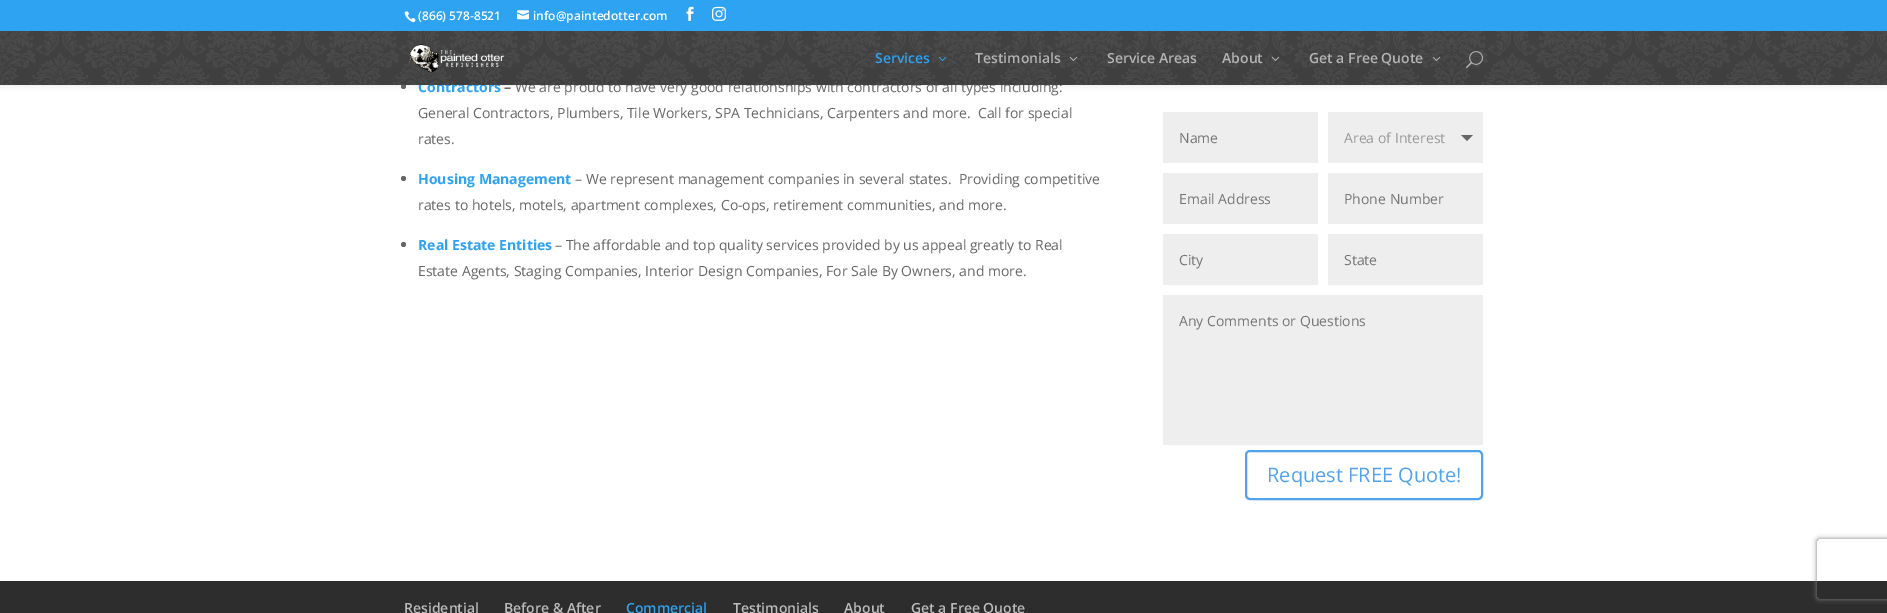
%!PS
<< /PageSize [1887 613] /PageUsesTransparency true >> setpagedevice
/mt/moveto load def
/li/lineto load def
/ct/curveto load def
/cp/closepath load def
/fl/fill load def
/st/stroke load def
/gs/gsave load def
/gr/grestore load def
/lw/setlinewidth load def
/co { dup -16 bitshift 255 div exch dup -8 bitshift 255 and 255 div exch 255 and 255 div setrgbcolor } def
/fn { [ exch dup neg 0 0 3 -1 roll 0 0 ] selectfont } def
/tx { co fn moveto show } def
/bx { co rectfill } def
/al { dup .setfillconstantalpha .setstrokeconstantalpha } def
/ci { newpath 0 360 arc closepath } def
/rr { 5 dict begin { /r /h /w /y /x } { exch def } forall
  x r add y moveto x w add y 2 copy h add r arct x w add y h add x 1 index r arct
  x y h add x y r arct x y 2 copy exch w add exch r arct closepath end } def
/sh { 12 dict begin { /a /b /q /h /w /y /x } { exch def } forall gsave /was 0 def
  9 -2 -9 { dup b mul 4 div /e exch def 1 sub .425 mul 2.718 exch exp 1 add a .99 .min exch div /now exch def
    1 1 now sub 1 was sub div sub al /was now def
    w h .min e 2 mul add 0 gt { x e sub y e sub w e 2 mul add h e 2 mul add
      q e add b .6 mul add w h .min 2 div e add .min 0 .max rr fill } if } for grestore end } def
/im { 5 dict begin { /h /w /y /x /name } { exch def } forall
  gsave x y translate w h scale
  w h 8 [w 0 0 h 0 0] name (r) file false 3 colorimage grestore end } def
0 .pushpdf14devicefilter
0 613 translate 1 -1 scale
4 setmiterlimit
0 0 1887 613 16#FFFFFF bx
16#666666 co
403.5 86.5 2.5 ci fl
16#000000 co
0 31 1887 54 0 3.5 .1 sh
0 0 1887 31 16#2EA3F2 bx
(media/1.raw) 404 11 12 12 im
(media/2.raw) 517 10 12 10 im
(media/3.raw) 686 6 8 15 im
(media/4.raw) 712 6 14 15 im
16#666666 co
403.5 178.5 2.5 ci fl
403.5 244.5 2.5 ci fl
1163 112 155 51 16#EEEEEE bx
1328 112 155 51 16#EEEEEE bx
16#666666 co
1461 135 mt 1473 135 li 1467 141 li cp fl
1163 173 155 51 16#EEEEEE bx
1328 173 155 51 16#EEEEEE bx
1163 234 155 51 16#EEEEEE bx
1328 234 155 51 16#EEEEEE bx
1163 295 320 150 16#EEEEEE bx
16#51A2EC co
2 lw
1246 451 236 48 4 rr st
0 581 1887 32 16#2D2D2D bx
gs
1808 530 mt 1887 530 li 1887 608 li 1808 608 li cp 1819 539 mt 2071 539 li 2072 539 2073 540 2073 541 ct 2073 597 li 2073 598 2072 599 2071 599 ct 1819 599 li 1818 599 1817 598 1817 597 ct 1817 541 li 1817 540 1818 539 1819 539 ct cp eoclip newpath
16#808080 co
1817 539 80 60 2 2.5 1 sh
gr
(\(866\) 578-8521) 418 20 /OpenSans-SemiBold 12 16#FFFFFF tx
(info@paintedotter.com) 533 20 /OpenSans-SemiBold 12 16#FFFFFF tx
(Contractors) 418 92 /OpenSans-Bold 14 16#2EA3F2 tx
(–) 504 92 /OpenSans-Bold 14 16#666666 tx
(We are proud to have very good relationships with contractors of all types including:) 515 92 /OpenSans-Regular 14 16#666666 tx
(media/5.raw) 0 31 1887 54 im
(media/10.raw) 1466 51 17 18 im
(media/8.raw) 1432 56 9 5 im
(Get a Free Quote) 1309 63 /OpenSans-SemiBold 14 16#B4B4B4 tx
(media/9.raw) 1271 56 9 5 im
(About) 1222 63 /OpenSans-SemiBold 14 16#B4B4B4 tx
(Service Areas) 1107 63 /OpenSans-SemiBold 14 16#B4B4B4 tx
(media/8.raw) 1069 56 9 5 im
(Testimonials) 975 63 /OpenSans-SemiBold 14 16#B4B4B4 tx
(media/7.raw) 938 56 9 5 im
(Services) 875 63 /OpenSans-SemiBold 14 16#2EA3F2 tx
(media/6.raw) 408 44 97 29 im
(General Contractors, Plumbers, Tile Workers, SPA Technicians, Carpenters and more.  Call for special) 418 118 /OpenSans-Regular 14 16#666666 tx
(rates.) 418 144 /OpenSans-Regular 14 16#666666 tx
(Housing Management) 418 184 /OpenSans-Bold 14 16#2EA3F2 tx
(– We represent management companies in several states.  Providing competitive) 575 184 /OpenSans-Regular 14 16#666666 tx
(rates to hotels, motels, apartment complexes, Co-ops, retirement communities, and more.) 418 210 /OpenSans-Regular 14 16#666666 tx
(Real Estate Entities) 418 250 /OpenSans-Bold 14 16#2EA3F2 tx
(– The affordable and top quality services provided by us appeal greatly to Real) 555 250 /OpenSans-Regular 14 16#666666 tx
(Estate Agents, Staging Companies, Interior Design Companies, For Sale By Owners, and more.) 418 276 /OpenSans-Regular 14 16#666666 tx
(Name) 1179 143 /OpenSans-Regular 14 16#757575 tx
(Area of Interest) 1344 143 /OpenSans-Regular 14 16#999999 tx
(Email Address) 1179 204 /OpenSans-Regular 14 16#757575 tx
(Phone Number) 1344 204 /OpenSans-Regular 14 16#757575 tx
(City) 1179 265 /OpenSans-Regular 14 16#757575 tx
(State) 1344 265 /OpenSans-Regular 14 16#757575 tx
(Any Comments or Questions) 1179 326 /OpenSans-Regular 14 16#757575 tx
(Request FREE Quote!) 1267 482 /OpenSans-Regular 20 16#51A2EC tx
(Residential) 404 613 /OpenSans-SemiBold 14 16#BBBBBB tx
(Before & After) 504 613 /OpenSans-SemiBold 14 16#BBBBBB tx
(Commercial) 626 613 /OpenSans-SemiBold 14 16#2EA3F2 tx
(Testimonials) 733 613 /OpenSans-SemiBold 14 16#BBBBBB tx
(About) 844 613 /OpenSans-SemiBold 14 16#BBBBBB tx
(Get a Free Quote) 911 613 /OpenSans-SemiBold 14 16#BBBBBB tx
.poppdf14devicefilter showpage
